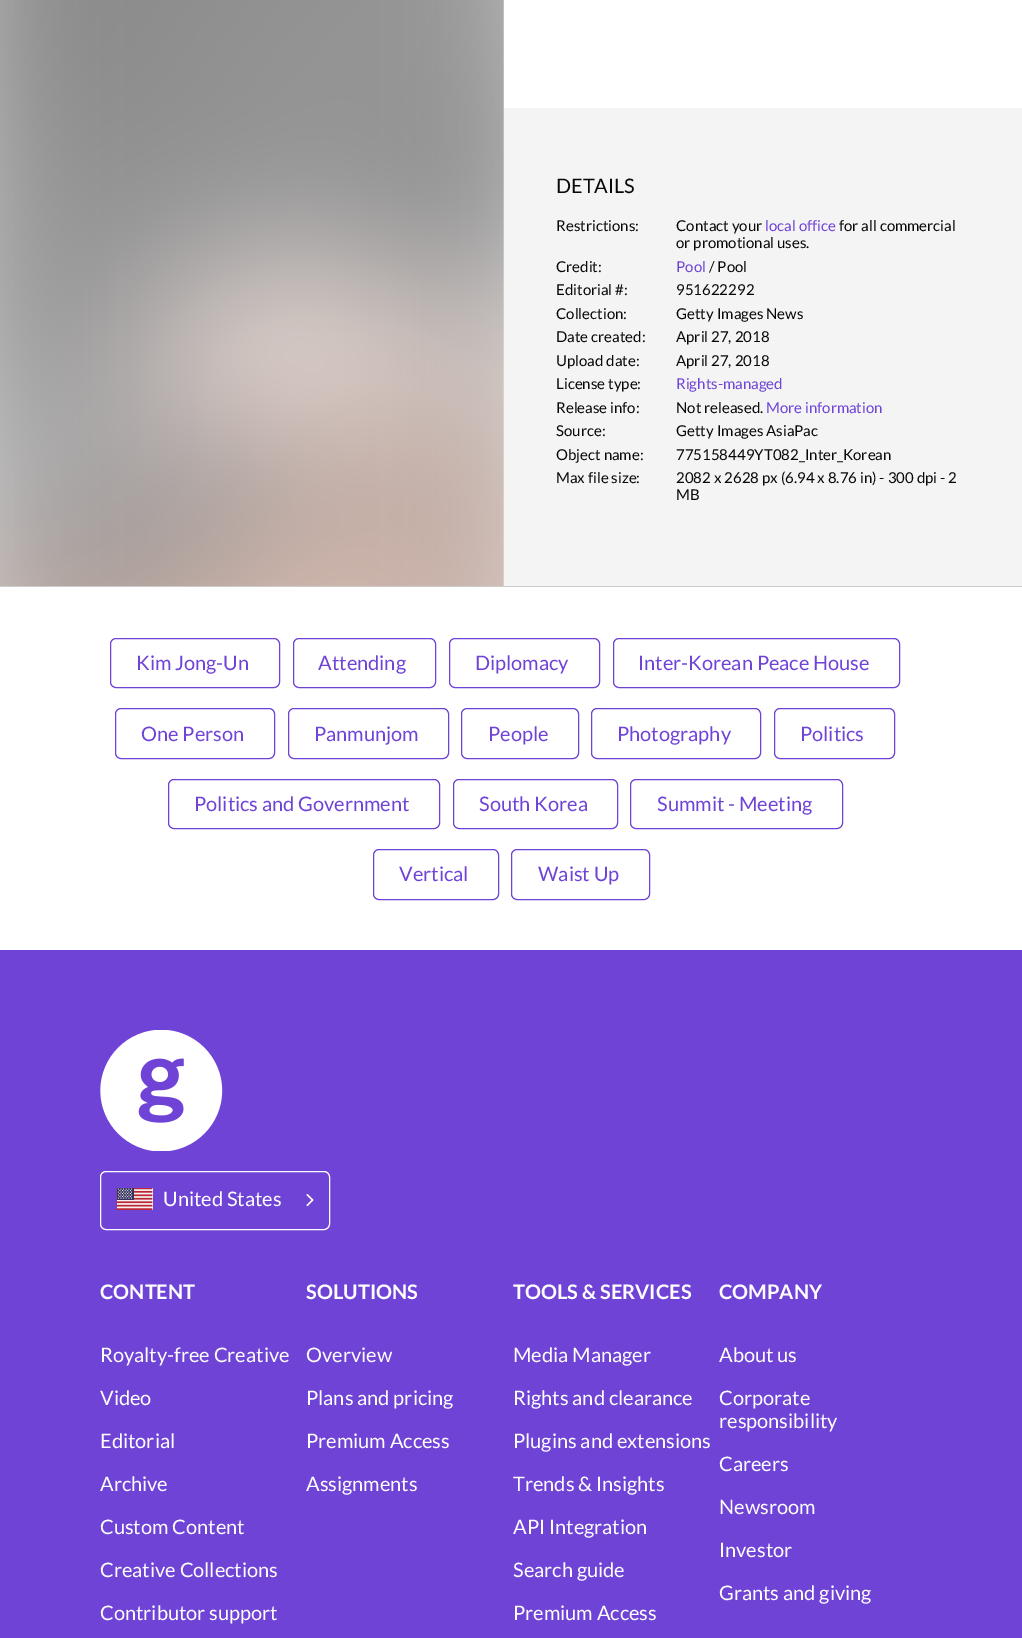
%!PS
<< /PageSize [1022 1638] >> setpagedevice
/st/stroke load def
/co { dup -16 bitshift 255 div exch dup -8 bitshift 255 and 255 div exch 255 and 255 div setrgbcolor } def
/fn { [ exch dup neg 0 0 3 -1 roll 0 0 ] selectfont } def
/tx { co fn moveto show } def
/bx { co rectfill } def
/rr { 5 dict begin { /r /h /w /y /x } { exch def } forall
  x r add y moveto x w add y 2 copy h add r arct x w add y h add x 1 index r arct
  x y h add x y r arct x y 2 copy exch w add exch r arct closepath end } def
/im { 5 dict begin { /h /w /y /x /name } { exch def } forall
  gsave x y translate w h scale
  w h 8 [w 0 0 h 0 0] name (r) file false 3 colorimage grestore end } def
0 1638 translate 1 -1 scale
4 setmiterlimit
0 0 1022 1638 16#FFFFFF bx
(media/1.raw) 0 0 504 586 im
504 108 518 478 16#F4F4F4 bx
0 586 1022 1 16#CCCCCC bx
16#6F43D6 co
110.5 638.5 169 49 5.5 rr st
293.5 638.5 142 49 5.5 rr st
449.5 638.5 150 49 5.5 rr st
613.5 638.5 286 49 5.5 rr st
115.5 708.5 159 50 5.5 rr st
288.5 708.5 160 50 5.5 rr st
461.5 708.5 117 50 5.5 rr st
591.5 708.5 169 50 5.5 rr st
774.5 708.5 120 50 5.5 rr st
168.5 779.5 271 49 5.5 rr st
453.5 779.5 164 49 5.5 rr st
630.5 779.5 212 49 5.5 rr st
373.5 849.5 125 50 5.5 rr st
511.5 849.5 138 50 5.5 rr st
0 950 1022 688 16#6F43D6 bx
(media/2.raw) 100 1030 123 121 im
16#FFFFFF co
100.5 1171.5 229 58 5.5 rr st
(media/3.raw) 116 1188 37 22 im
(media/4.raw) 306 1194 8 13 im
(DETAILS) 556 193 /Lato-Regular 20 16#080808 tx
(Restrictions:) 556 231 /Lato-Regular 15 16#080808 tx
(Contact your) 676 231 /Lato-Regular 15 16#080808 tx
(local office) 765 231 /Lato-Regular 15 16#6F43D6 tx
(for all commercial) 839 231 /Lato-Regular 15 16#080808 tx
(or promotional uses.) 676 248 /Lato-Regular 15 16#080808 tx
(Credit:) 556 272 /Lato-Regular 15 16#080808 tx
(Pool) 676 272 /Lato-Regular 15 16#6F43D6 tx
(/ Pool) 709 272 /Lato-Regular 15 16#080808 tx
(Editorial #:) 556 295 /Lato-Regular 15 16#080808 tx
(951622292) 676 295 /Lato-Regular 15 16#080808 tx
(Collection:) 556 319 /Lato-Regular 15 16#080808 tx
(Getty Images News) 676 319 /Lato-Regular 15 16#080808 tx
(Date created:) 556 342 /Lato-Regular 15 16#080808 tx
(April 27, 2018) 676 342 /Lato-Regular 15 16#080808 tx
(Upload date:) 556 366 /Lato-Regular 15 16#080808 tx
(April 27, 2018) 676 366 /Lato-Regular 15 16#080808 tx
(License type:) 556 389 /Lato-Regular 15 16#080808 tx
(Rights-managed) 676 389 /Lato-Regular 15 16#6F43D6 tx
(Release info:) 556 413 /Lato-Regular 15 16#080808 tx
(Not released.) 676 413 /Lato-Regular 15 16#080808 tx
(More information) 766 413 /Lato-Regular 15 16#6F43D6 tx
(Source:) 556 436 /Lato-Regular 15 16#080808 tx
(Getty Images AsiaPac) 676 436 /Lato-Regular 15 16#080808 tx
(Object name:) 556 460 /Lato-Regular 15 16#080808 tx
(775158449YT082_Inter_Korean) 676 460 /Lato-Regular 15 16#080808 tx
(Max file size:) 556 483 /Lato-Regular 15 16#080808 tx
(2082 x 2628 px \(6.94 x 8.76 in\) - 300 dpi - 2) 676 483 /Lato-Regular 15 16#080808 tx
(MB) 676 500 /Lato-Regular 15 16#080808 tx
(Kim Jong-Un) 136 670 /Lato-Regular 20 16#6F43D6 tx
(Attending) 318 670 /Lato-Regular 20 16#6F43D6 tx
(Diplomacy) 475 670 /Lato-Regular 20 16#6F43D6 tx
(Inter-Korean Peace House) 638 670 /Lato-Regular 20 16#6F43D6 tx
(One Person) 141 741 /Lato-Regular 20 16#6F43D6 tx
(Panmunjom) 314 741 /Lato-Regular 20 16#6F43D6 tx
(People) 488 741 /Lato-Regular 20 16#6F43D6 tx
(Photography) 617 741 /Lato-Regular 20 16#6F43D6 tx
(Politics) 800 741 /Lato-Regular 20 16#6F43D6 tx
(Politics and Government) 194 811 /Lato-Regular 20 16#6F43D6 tx
(South Korea) 479 811 /Lato-Regular 20 16#6F43D6 tx
(Summit - Meeting) 657 811 /Lato-Regular 20 16#6F43D6 tx
(Vertical) 399 881 /Lato-Regular 20 16#6F43D6 tx
(Waist Up) 538 881 /Lato-Regular 20 16#6F43D6 tx
(United States) 163 1206 /Lato-Regular 20 16#FFFFFF tx
(CONTENT) 100 1299 /Lato-Bold 20 16#FFFFFF tx
(Royalty-free Creative) 100 1362 /Lato-Regular 20 16#FFFFFF tx
(Video) 100 1405 /Lato-Regular 20 16#FFFFFF tx
(Editorial) 100 1448 /Lato-Regular 20 16#FFFFFF tx
(Archive) 100 1491 /Lato-Regular 20 16#FFFFFF tx
(Custom Content) 100 1534 /Lato-Regular 20 16#FFFFFF tx
(Creative Collections) 100 1577 /Lato-Regular 20 16#FFFFFF tx
(Contributor support) 100 1620 /Lato-Regular 20 16#FFFFFF tx
(SOLUTIONS) 306 1299 /Lato-Bold 20 16#FFFFFF tx
(Overview) 306 1362 /Lato-Regular 20 16#FFFFFF tx
(Plans and pricing) 306 1405 /Lato-Regular 20 16#FFFFFF tx
(Premium Access) 306 1448 /Lato-Regular 20 16#FFFFFF tx
(Assignments) 306 1491 /Lato-Regular 20 16#FFFFFF tx
(TOOLS & SERVICES) 513 1299 /Lato-Bold 20 16#FFFFFF tx
(Media Manager) 513 1362 /Lato-Regular 20 16#FFFFFF tx
(Rights and clearance) 513 1405 /Lato-Regular 20 16#FFFFFF tx
(Plugins and extensions) 513 1448 /Lato-Regular 20 16#FFFFFF tx
(Trends & Insights) 513 1491 /Lato-Regular 20 16#FFFFFF tx
(API Integration) 513 1534 /Lato-Regular 20 16#FFFFFF tx
(Search guide) 513 1577 /Lato-Regular 20 16#FFFFFF tx
(Premium Access) 513 1620 /Lato-Regular 20 16#FFFFFF tx
(COMPANY) 719 1299 /Lato-Bold 20 16#FFFFFF tx
(About us) 719 1362 /Lato-Regular 20 16#FFFFFF tx
(Corporate) 719 1405 /Lato-Regular 20 16#FFFFFF tx
(responsibility) 719 1428 /Lato-Regular 20 16#FFFFFF tx
(Careers) 719 1471 /Lato-Regular 20 16#FFFFFF tx
(Newsroom) 719 1514 /Lato-Regular 20 16#FFFFFF tx
(Investor) 719 1557 /Lato-Regular 20 16#FFFFFF tx
(Grants and giving) 719 1600 /Lato-Regular 20 16#FFFFFF tx
showpage
